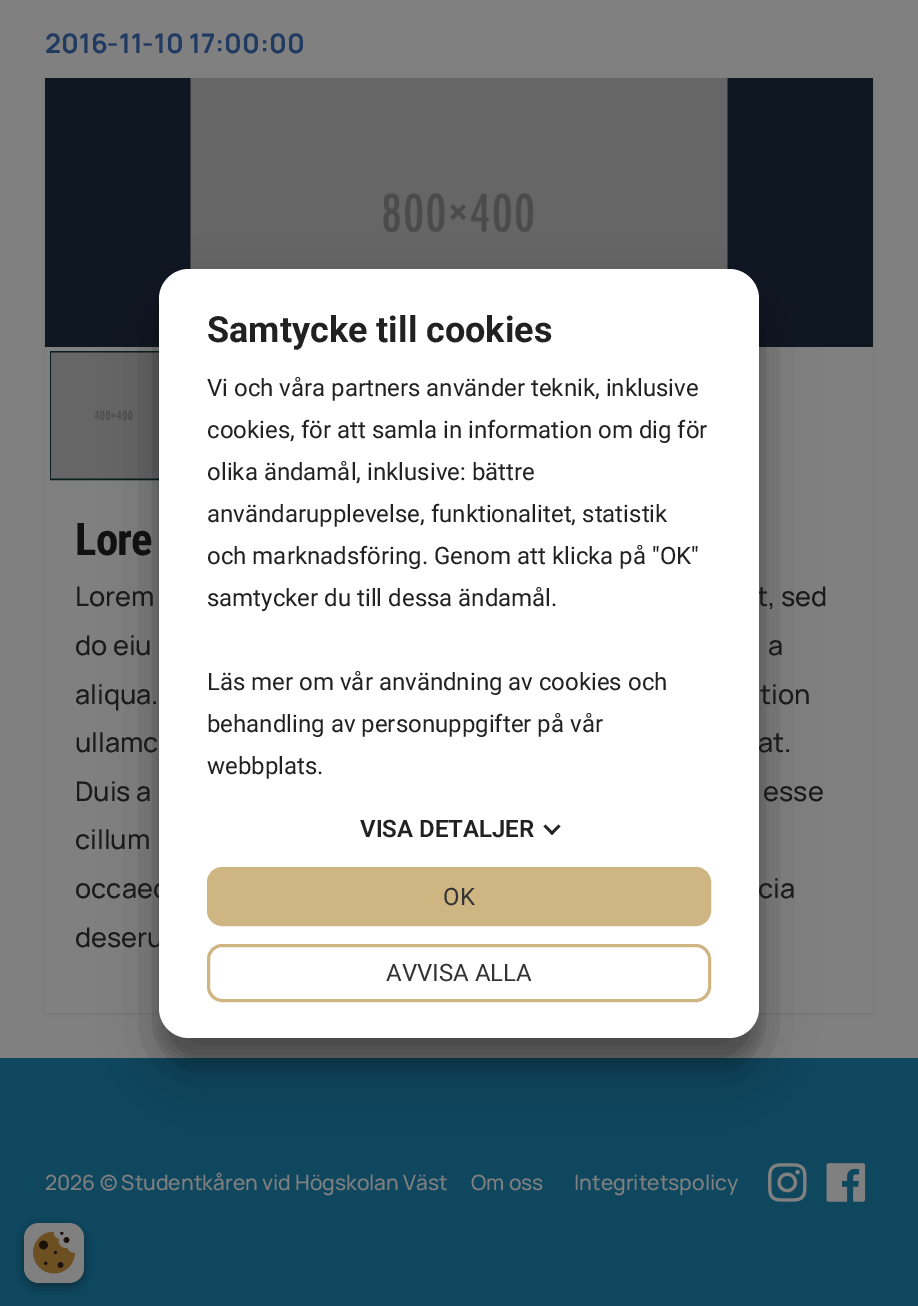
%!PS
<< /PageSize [918 1306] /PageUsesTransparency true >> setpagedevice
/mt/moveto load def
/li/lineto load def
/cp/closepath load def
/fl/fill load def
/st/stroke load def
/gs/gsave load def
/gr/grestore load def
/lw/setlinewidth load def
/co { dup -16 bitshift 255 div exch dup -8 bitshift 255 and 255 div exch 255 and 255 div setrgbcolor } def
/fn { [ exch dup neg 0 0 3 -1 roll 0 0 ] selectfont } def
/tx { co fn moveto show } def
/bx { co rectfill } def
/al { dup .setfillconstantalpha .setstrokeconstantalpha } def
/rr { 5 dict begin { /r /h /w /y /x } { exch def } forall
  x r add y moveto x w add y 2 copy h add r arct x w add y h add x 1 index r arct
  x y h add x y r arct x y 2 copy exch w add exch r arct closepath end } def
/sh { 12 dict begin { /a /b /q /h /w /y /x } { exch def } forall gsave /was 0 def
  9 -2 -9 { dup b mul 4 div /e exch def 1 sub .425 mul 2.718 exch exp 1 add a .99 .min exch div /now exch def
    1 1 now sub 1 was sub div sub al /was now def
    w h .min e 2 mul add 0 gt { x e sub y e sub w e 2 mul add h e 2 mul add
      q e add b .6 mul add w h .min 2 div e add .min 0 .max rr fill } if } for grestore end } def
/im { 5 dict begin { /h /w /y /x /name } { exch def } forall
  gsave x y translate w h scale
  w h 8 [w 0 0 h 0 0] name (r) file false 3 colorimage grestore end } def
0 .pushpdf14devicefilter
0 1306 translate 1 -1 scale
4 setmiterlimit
0 0 918 1306 16#808080 bx
16#000000 co
45 80 828 934 0 1.5 .1 sh
45 347 828 666 16#808080 bx
45 78 828 269 16#0F1723 bx
(media/1.raw) 190 78 538 191 im
16#081F1D co
2 lw
51 352 127 127 rectstroke
(media/2.raw) 51 352 108 127 im
0 1058 918 248 16#0E475E bx
(media/3.raw) 768 1163 39 39 im
(media/4.raw) 826 1163 40 39 im
16#000000 co
159 291 600 770 30 9 .22 sh
159 297 600 770 30 28.5 .3 sh
24 1227 60 60 15 4.5 .23 sh
24 1227 60 60 15 4.5 .16 sh
16#808080 co
24 1223 60 60 15 rr fl
(media/5.raw) 33 1232 42 42 im
(2016-11-10 17:00:00) 45 53 /Manrope-Bold 27 16#213A61 tx
/RobotoCondensed-Bold 45 fn
16#111111 co
75 555 mt -1 0 (Lore) ashow
(Lorem) 75 606 /Manrope-Medium 27 16#1A1A1A tx
(t, sed) 757 606 /Manrope-Medium 27 16#1A1A1A tx
(do eiu) 75 655 /Manrope-Medium 27 16#1A1A1A tx
(a) 768 655 /Manrope-Medium 27 16#1A1A1A tx
(aliqua.) 75 704 /Manrope-Medium 27 16#1A1A1A tx
(tion) 760 704 /Manrope-Medium 27 16#1A1A1A tx
(ullamc) 75 752 /Manrope-Medium 27 16#1A1A1A tx
(at.) 758 752 /Manrope-Medium 27 16#1A1A1A tx
(Duis a) 75 801 /Manrope-Medium 27 16#1A1A1A tx
(esse) 763 801 /Manrope-Medium 27 16#1A1A1A tx
(cillum) 75 849 /Manrope-Medium 27 16#1A1A1A tx
(occaec) 75 898 /Manrope-Medium 27 16#1A1A1A tx
(cia) 758 898 /Manrope-Medium 27 16#1A1A1A tx
(deseru) 75 947 /Manrope-Medium 27 16#1A1A1A tx
(2026 © Studentkåren vid Högskolan Väst) 45 1190 /Manrope-Medium 21 16#808080 tx
(Om oss) 471 1190 /Manrope-Medium 21 16#808080 tx
(Integritetspolicy) 574 1190 /Manrope-Medium 21 16#808080 tx
16#FFFFFF co
159 269 600 769 30 rr fl
(Samtycke till cookies) 207 342 /Roboto-Bold 36 16#212121 tx
(Vi och våra partners använder teknik, inklusive) 207 396 /Roboto-Regular 24 16#212121 tx
(cookies, för att samla in information om dig för) 207 438 /Roboto-Regular 24 16#212121 tx
(olika ändamål, inklusive: bättre) 207 480 /Roboto-Regular 24 16#212121 tx
(användarupplevelse, funktionalitet, statistik) 207 522 /Roboto-Regular 24 16#212121 tx
(och marknadsföring. Genom att klicka på "OK") 207 564 /Roboto-Regular 24 16#212121 tx
(samtycker du till dessa ändamål.) 207 606 /Roboto-Regular 24 16#212121 tx
(Läs mer om vår användning av cookies och) 207 690 /Roboto-Regular 24 16#212121 tx
(behandling av personuppgifter på vår) 207 732 /Roboto-Regular 24 16#212121 tx
(webbplats.) 207 774 /Roboto-Regular 24 16#212121 tx
(VISA DETALJER) 360 837 /Roboto-SemiBold 24 16#212121 tx
558.5 824.5 mt 560.5 826.5 li 552 835 li 550 833 li cp fl
545.5 824.5 mt 554 833 li 552 835 li 543.5 826.5 li cp fl
16#CEB582 co
208.5 868.5 501 56 13.5 rr gs fl gr
3 lw
st
(OK) 443 905 /Roboto-Regular 24 16#333333 tx
16#CEB582 co
208.5 945.5 501 55 13.5 rr st
(AVVISA ALLA) 386 981 /Roboto-Regular 24 16#333333 tx
.poppdf14devicefilter showpage
